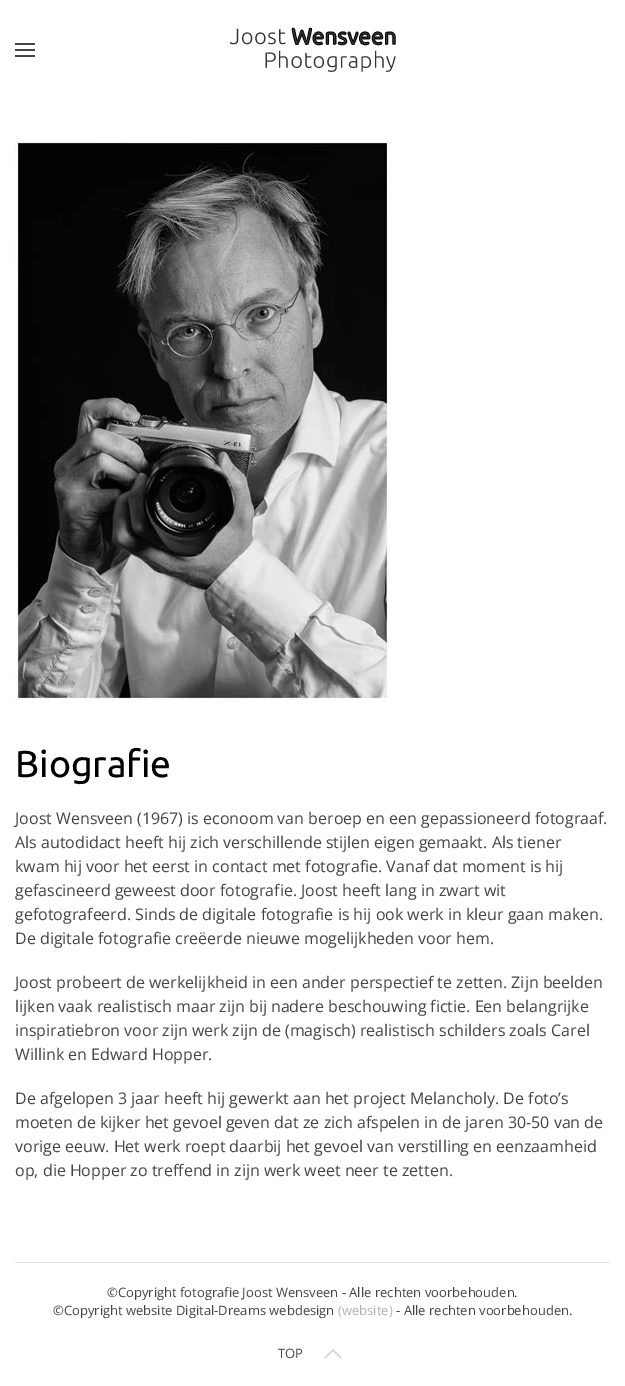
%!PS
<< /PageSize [625 1386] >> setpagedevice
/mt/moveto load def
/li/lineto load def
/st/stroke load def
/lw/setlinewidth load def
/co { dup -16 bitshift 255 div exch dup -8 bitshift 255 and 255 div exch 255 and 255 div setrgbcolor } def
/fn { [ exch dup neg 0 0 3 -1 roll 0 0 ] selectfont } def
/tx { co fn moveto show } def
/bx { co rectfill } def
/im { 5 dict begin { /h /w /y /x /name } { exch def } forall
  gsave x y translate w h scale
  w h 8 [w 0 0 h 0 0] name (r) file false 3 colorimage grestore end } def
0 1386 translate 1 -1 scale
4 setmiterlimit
0 0 625 1386 16#FFFFFF bx
15 43 20 2 16#444444 bx
15 49 20 2 16#444444 bx
15 55 20 2 16#444444 bx
(media/1.raw) 230 27 166 45 im
(media/2.raw) 15 140 375 560 im
15 1262 595 1 16#E4E4E4 bx
16#D3D3D3 co
1.2 lw
325 1358 mt 333 1350 li 341 1358 li st
(Biografie) 15 777 /Ubuntu-Regular 37.5 16#000000 tx
(Joost Wensveen \(1967\) is econoom van beroep en een gepassioneerd fotograaf.) 15 824 /OpenSans-Regular 16 16#444444 tx
(Als autodidact heeft hij zich verschillende stijlen eigen gemaakt. Als tiener) 15 848 /OpenSans-Regular 16 16#444444 tx
(kwam hij voor het eerst in contact met fotografie. Vanaf dat moment is hij) 15 872 /OpenSans-Regular 16 16#444444 tx
(gefascineerd geweest door fotografie. Joost heeft lang in zwart wit) 15 896 /OpenSans-Regular 16 16#444444 tx
(gefotografeerd. Sinds de digitale fotografie is hij ook werk in kleur gaan maken.) 15 920 /OpenSans-Regular 16 16#444444 tx
(De digitale fotografie creëerde nieuwe mogelijkheden voor hem.) 15 944 /OpenSans-Regular 16 16#444444 tx
(Joost probeert de werkelijkheid in een ander perspectief te zetten. Zijn beelden) 15 988 /OpenSans-Regular 16 16#444444 tx
(lijken vaak realistisch maar zijn bij nadere beschouwing fictie. Een belangrijke) 15 1012 /OpenSans-Regular 16 16#444444 tx
(inspiratiebron voor zijn werk zijn de \(magisch\) realistisch schilders zoals Carel) 15 1036 /OpenSans-Regular 16 16#444444 tx
(Willink en Edward Hopper.) 15 1060 /OpenSans-Regular 16 16#444444 tx
(De afgelopen 3 jaar heeft hij gewerkt aan het project Melancholy. De foto’s) 15 1104 /OpenSans-Regular 16 16#444444 tx
(moeten de kijker het gevoel geven dat ze zich afspelen in de jaren 30-50 van de) 15 1128 /OpenSans-Regular 16 16#444444 tx
(vorige eeuw. Het werk roept daarbij het gevoel van verstilling en eenzaamheid) 15 1152 /OpenSans-Regular 16 16#444444 tx
(op, die Hopper zo treffend in zijn werk weet neer te zetten.) 15 1176 /OpenSans-Regular 16 16#444444 tx
(©Copyright fotografie Joost Wensveen - Alle rechten voorbehouden.) 107 1297 /OpenSans-Regular 13 16#444444 tx
(©Copyright website Digital-Dreams webdesign) 53 1315 /OpenSans-Regular 13 16#444444 tx
(\(website\)) 338 1315 /OpenSans-Regular 13 16#B0B0B0 tx
(- Alle rechten voorbehouden.) 396 1315 /OpenSans-Regular 13 16#444444 tx
(TOP) 278 1358 /OpenSans-Regular 13 16#444444 tx
showpage
